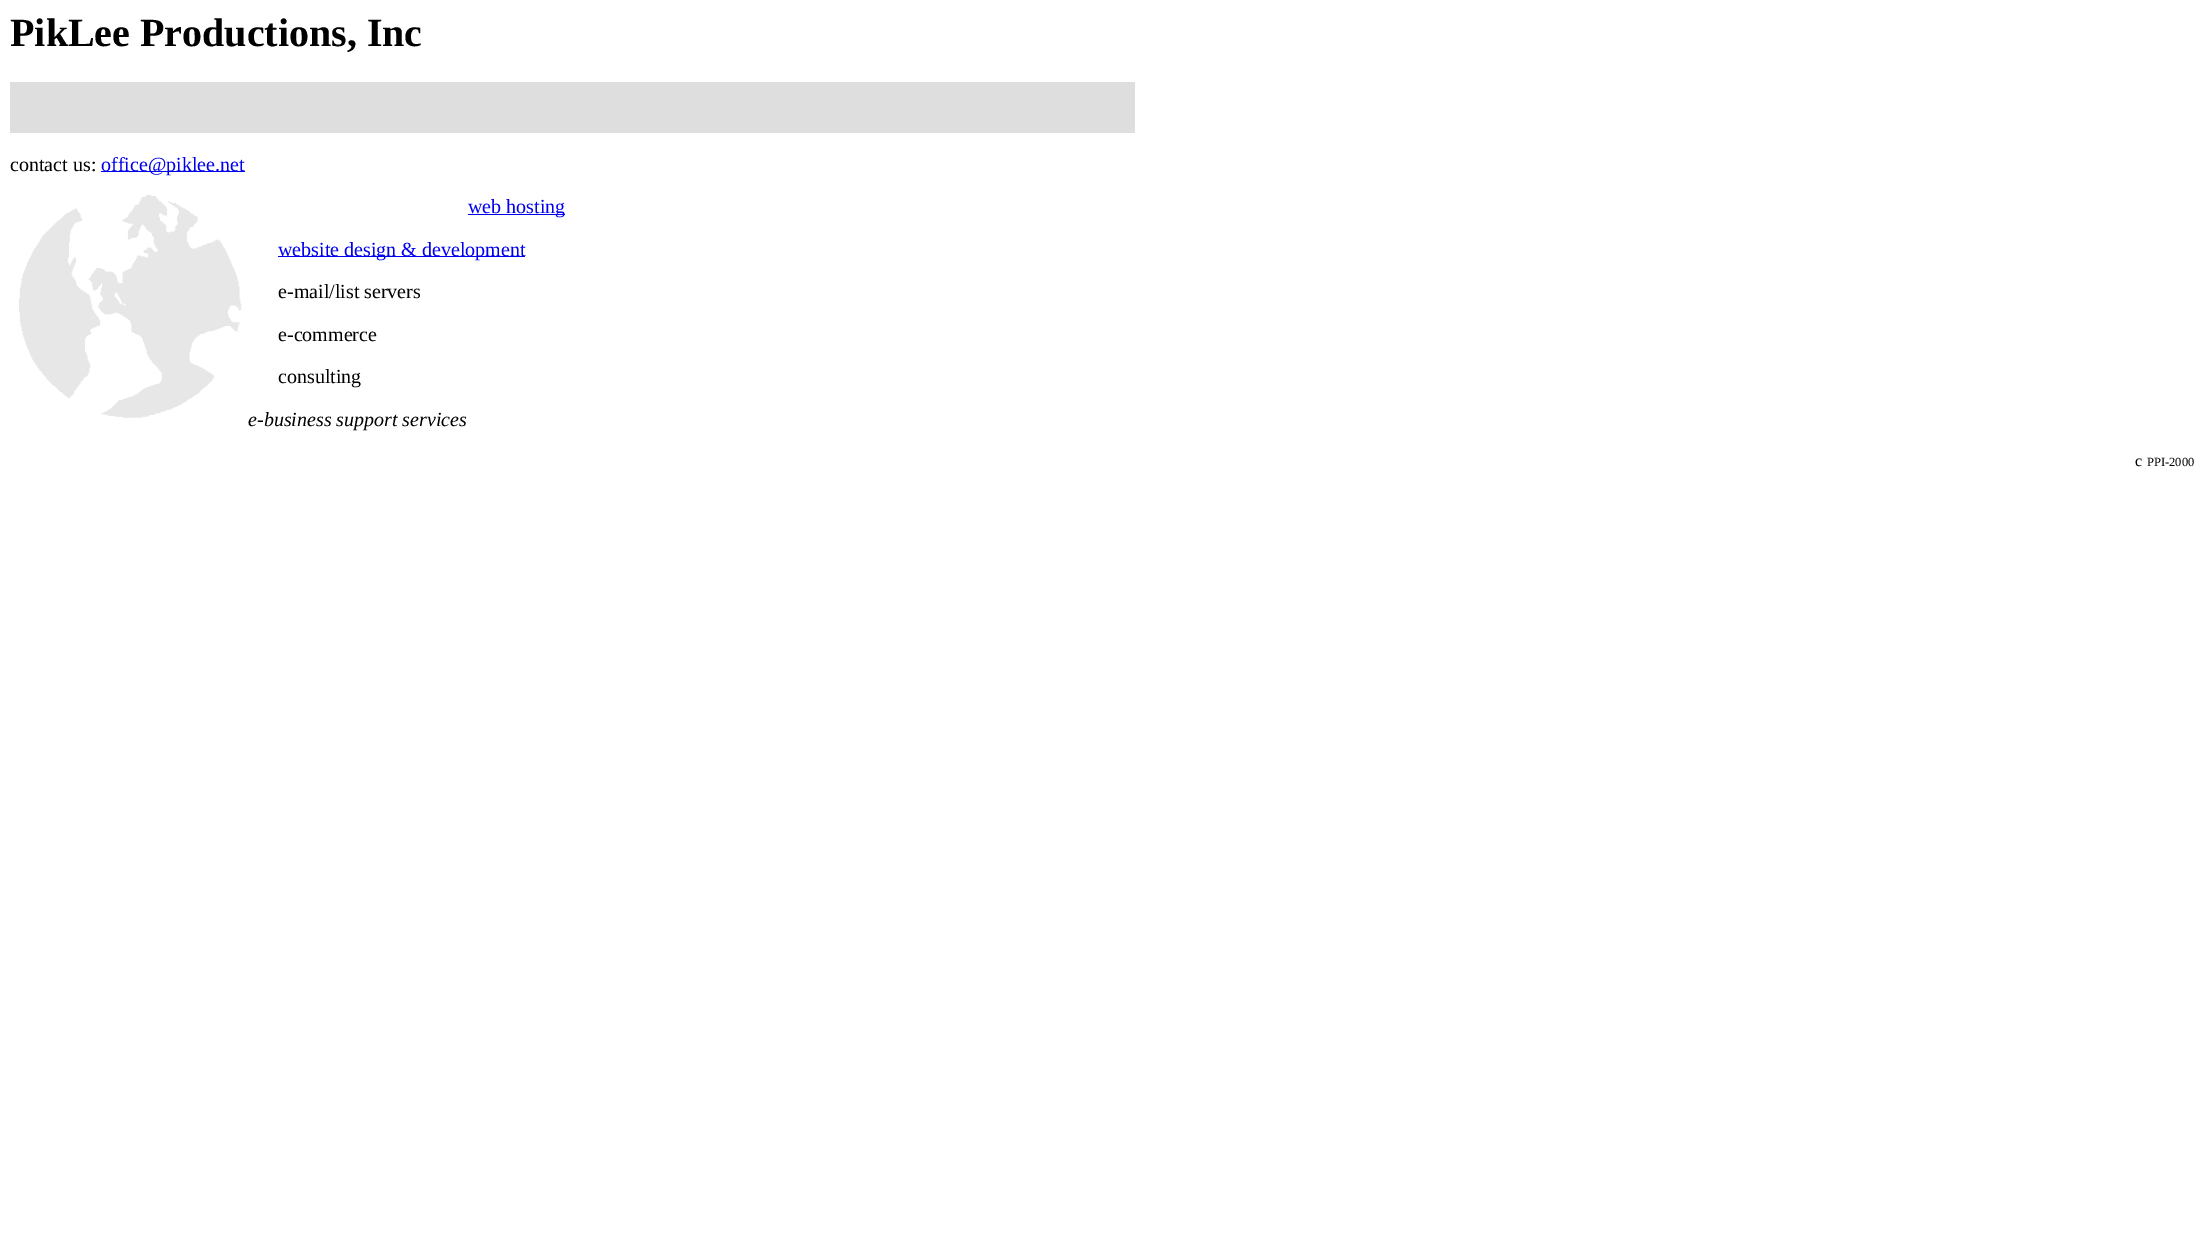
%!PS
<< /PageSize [2203 1260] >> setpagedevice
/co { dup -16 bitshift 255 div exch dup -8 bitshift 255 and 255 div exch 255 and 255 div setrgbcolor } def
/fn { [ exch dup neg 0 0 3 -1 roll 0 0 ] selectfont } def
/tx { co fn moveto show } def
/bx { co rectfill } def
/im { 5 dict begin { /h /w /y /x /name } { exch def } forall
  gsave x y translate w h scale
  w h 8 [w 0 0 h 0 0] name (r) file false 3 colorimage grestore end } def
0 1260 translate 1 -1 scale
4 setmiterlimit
0 0 2203 1260 16#FFFFFF bx
10 82 1125 51 16#DEDEDE bx
101 171 144 1 16#0000EE bx
(media/1.raw) 19 195 223 223 im
468 214 97 1 16#0000EE bx
278 256 247 1 16#0000EE bx
(PikLee Productions, Inc) 10 46 /LiberationSerif-Bold 40 16#000000 tx
(contact us:) 10 171 /LiberationSerif-Regular 20 16#000000 tx
(office@piklee.net) 101 171 /LiberationSerif-Regular 20 16#0000EE tx
(web hosting) 468 213 /LiberationSerif-Regular 20 16#0000EE tx
(website design & development) 278 256 /LiberationSerif-Regular 20 16#0000EE tx
(e-mail/list servers) 278 298 /LiberationSerif-Regular 20 16#000000 tx
(e-commerce) 278 341 /LiberationSerif-Regular 20 16#000000 tx
(consulting) 278 383 /LiberationSerif-Regular 20 16#000000 tx
(e-business support services) 248 426 /LiberationSerif-Italic 20 16#000000 tx
(c) 2135 466 /LiberationSerif-Regular 16 16#000000 tx
(PPI-2000) 2147 466 /LiberationSerif-Regular 12.5 16#000000 tx
showpage
